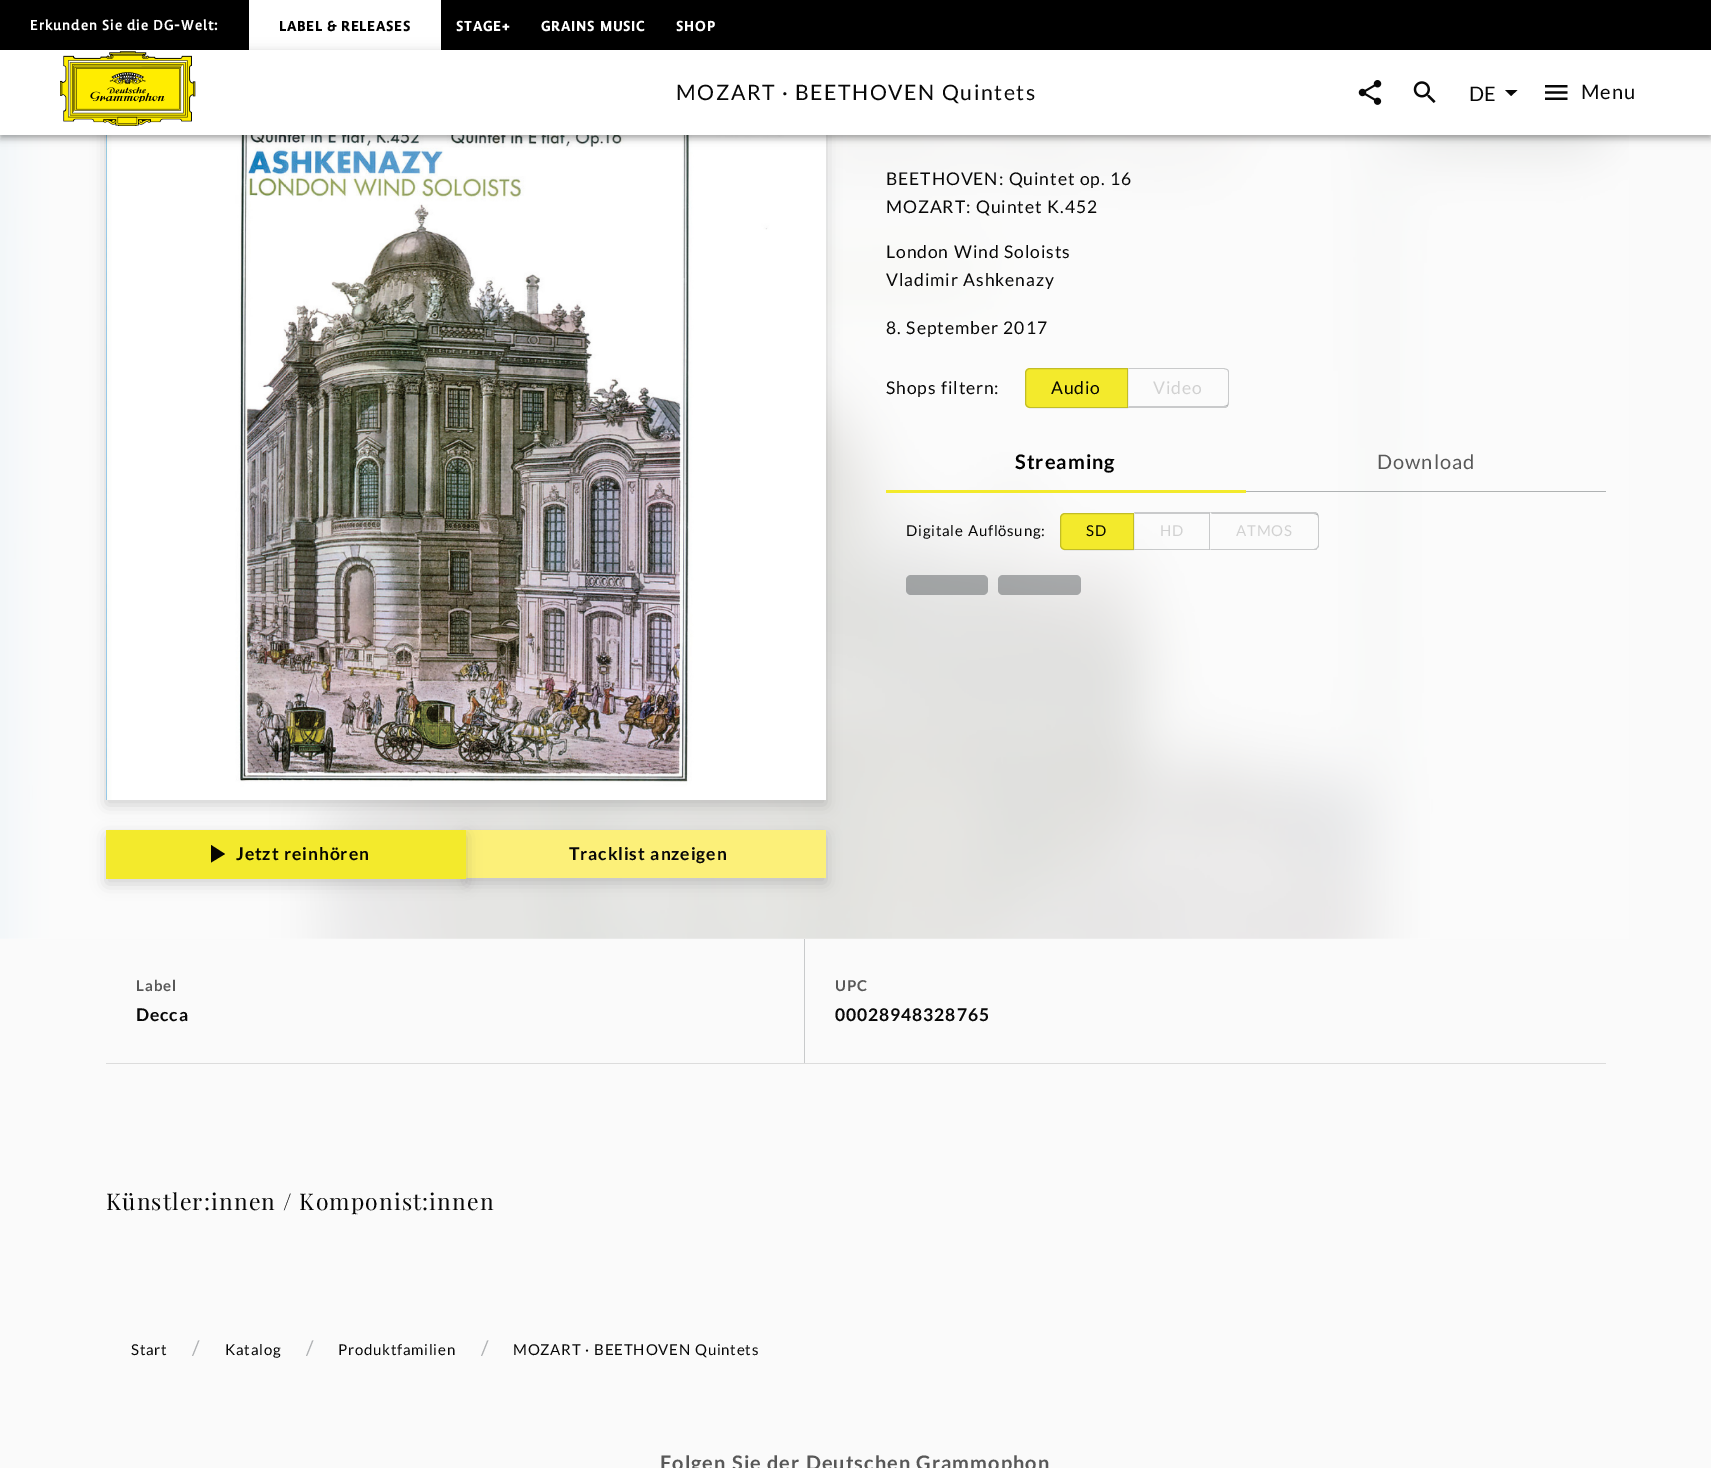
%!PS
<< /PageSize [1711 1468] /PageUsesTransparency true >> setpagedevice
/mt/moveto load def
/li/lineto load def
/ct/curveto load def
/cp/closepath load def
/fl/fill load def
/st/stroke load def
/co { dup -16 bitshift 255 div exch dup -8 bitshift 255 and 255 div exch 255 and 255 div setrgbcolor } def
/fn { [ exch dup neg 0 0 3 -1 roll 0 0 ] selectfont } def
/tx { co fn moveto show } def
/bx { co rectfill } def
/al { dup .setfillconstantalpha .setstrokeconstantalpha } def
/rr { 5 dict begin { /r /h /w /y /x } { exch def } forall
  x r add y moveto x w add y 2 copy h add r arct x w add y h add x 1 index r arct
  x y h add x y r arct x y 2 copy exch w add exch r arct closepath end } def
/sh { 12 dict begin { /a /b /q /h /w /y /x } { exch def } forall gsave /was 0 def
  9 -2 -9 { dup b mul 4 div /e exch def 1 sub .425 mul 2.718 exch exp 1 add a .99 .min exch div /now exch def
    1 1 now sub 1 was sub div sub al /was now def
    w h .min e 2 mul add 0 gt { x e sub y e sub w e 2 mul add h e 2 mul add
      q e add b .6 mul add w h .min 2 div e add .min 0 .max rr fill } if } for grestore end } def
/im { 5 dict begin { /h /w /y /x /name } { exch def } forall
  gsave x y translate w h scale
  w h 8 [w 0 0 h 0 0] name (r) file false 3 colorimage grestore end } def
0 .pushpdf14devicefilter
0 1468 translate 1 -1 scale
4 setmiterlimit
0 0 1711 1468 16#FAFAFA bx
0 0 1711 50 16#000000 bx
249 0 192 50 16#FFFFFF bx
(media/5.raw) 0 135 1629 804 im
16#434343 co
106 85 720 720 0 7.5 .23 sh
(media/6.raw) 106 135 720 665 im
16#000000 co
0 51 1711 85 0 6 .12 sh
0 55 1711 85 0 3 .14 sh
1 54 1709 82 0 2.5 .2 sh
0 50 1711 85 16#FFFFFF bx
(media/1.raw) 60 51 136 75 im
(media/2.raw) 1358 80 24 25 im
(media/3.raw) 1413 81 23 22 im
16#080808 co
1505 90 mt 1511 96 li 1517.5 90 li cp fl
(media/4.raw) 1545 85 23 15 im
16#F3EA2C co
1030 368 mt 1128 368 li 1128 408 li 1030 408 li 1027 408 1025 406 1025 403 ct 1025 373 li 1025 370 1027 368 1030 368 ct cp fl
0.2 al
16#00080D co
1030 368.5 mt 1127.5 368.5 li 1127.5 407.5 li 1030 407.5 li 1027.5 407.5 1025.5 405.5 1025.5 403 ct 1025.5 373 li 1025.5 370.5 1027.5 368.5 1030 368.5 ct cp st
1 al
16#C9CACB co
1128 368 mt 1129 369 li 1224 369 li 1227 370 li 1227 369 li 1224 368 li cp fl
1227.5 369 mt 1229 371 li 1229 404 li 1227.5 406.5 li 1226.5 405.5 li 1227.5 404.5 1228 403.5 1228 402 ct 1228 372 li 1228 371 1227.5 370 1226.5 369.5 ct cp fl
0.2 al
16#00080D co
1128 408 mt 1129 406 li 1224 406 li 1227 405 li 1228 406 li 1226 408 li cp fl
1 al
1246 491 360 1 16#AFB2B3 bx
886 490 360 3 16#F3EA2C bx
1065 513 mt 1134 513 li 1134 550 li 1065 550 li 1062 550 1060 548 1060 545 ct 1060 518 li 1060 515 1062 513 1065 513 ct cp fl
0.2 al
16#00080D co
1065 513.5 mt 1133.5 513.5 li 1133.5 549.5 li 1065 549.5 li 1062.5 549.5 1060.5 547.5 1060.5 545 ct 1060.5 518 li 1060.5 515.5 1062.5 513.5 1065 513.5 ct cp st
1 al
16#C9CACB co
1134 512 mt 1210 512 li 1209 514 li 1135 514 li cp fl
0.2 al
16#00080D co
1210 512.5 mt 1210 550 li 1209 549 li 1209 514 li cp fl
1210 550 mt 1134 550 li 1135 549 li 1209 549 li cp fl
1 al
16#C9CACB co
1210 512 mt 1316 512 li 1318 514 li 1317 515 li 1314 514 li 1212 514 li cp fl
0.2 al
16#00080D co
1319 546.5 mt 1317.5 548.5 li 1316.5 548 li 1317.5 547 1318 546 1318 545 ct 1318 518 li 1318 516.5 1317.5 515.5 1316.5 514.5 ct 1317.5 513.5 li 1319 516 li cp fl
1314 550 mt 1315 550 1317 550 1317 549 ct 1317 548 li 1314 549 li 1211 549 li 1210 550 li cp fl
0.3 al
906 575 82 20 5 rr fl
998 575 83 20 5 rr fl
1 al
16#434343 co
466 835 360 48 0 7.5 .23 sh
466 830 360 48 16#FCF079 bx
16#434343 co
106 835 360 49 0 7.5 .23 sh
106 830 360 49 16#F3EA2C bx
16#070701 co
211 845 mt 211 862.5 li 225 854 li cp fl
804 939 1 124 16#C8CACB bx
106 1063 1500 1 16#DCDCDC bx
/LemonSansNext-Medium 15 fn
16#FFFFFF co
30 30 mt .75 0 (Erkunden Sie die DG-Welt:) ashow
/LemonSansNext-Bold 15 fn
16#000000 co
279 31 mt .75 0 (LABEL & RELEASES) ashow
16#FFFFFF co
456 31 mt .75 0 (STAGE+) ashow
541 31 mt .75 0 (GRAINS MUSIC) ashow
676 31 mt .75 0 (SHOP) ashow
/Lato-Regular 21.25 fn
16#080808 co
676 100 mt 1.6 0 (MOZART · BEETHOVEN Quintets) ashow
(DE) 1469 101 /Lato-Regular 20 16#080808 tx
1581 99 mt 1 0 (Menu) ashow
/Lato-Regular 17.5 fn
886 185 mt .5 0 32 .9 0 (BEETHOVEN: Quintet op. 16) awidthshow
886 213 mt .5 0 32 .9 0 (MOZART: Quintet K.452) awidthshow
886 258 mt .5 0 32 .9 0 (London Wind Soloists) awidthshow
886 286 mt .5 0 32 .9 0 (Vladimir Ashkenazy) awidthshow
886 334 mt .5 0 32 .9 0 (8. September 2017) awidthshow
886 394 mt .5 0 32 .9 0 (Shops filtern) awidthshow
994 394 mt .9 0 (:) ashow
16#070701 co
1051 394 mt .9 0 (Audio) ashow
16#D1D1D1 co
1153 394 mt .9 0 (Video) ashow
/Lato-Bold 20 fn
16#000000 co
1015 469 mt 1 0 (Streaming) ashow
/Lato-Regular 20 fn
16#585858 co
1377 469 mt 1 0 (Download) ashow
/Lato-Regular 15 fn
16#080808 co
906 536 mt .5 0 32 .75 0 (Digitale Auflösung) awidthshow
1041 536 mt .75 0 (:) ashow
16#070701 co
1086 536 mt .75 0 (SD) ashow
16#D1D1D1 co
1160 536 mt .75 0 (HD) ashow
1236 536 mt .75 0 (ATMOS) ashow
/Lato-Bold 17.5 fn
16#070701 co
236 860 mt .5 0 32 .9 0 (Jetzt reinhören) awidthshow
16#080808 co
569 860 mt .5 0 32 .9 0 (Tracklist anzeigen) awidthshow
/Lato-Bold 15 fn
16#585858 co
136 991 mt 1 0 (Label) ashow
/Lato-Bold 17.5 fn
16#080808 co
136 1021 mt .9 0 (Decca) ashow
/Lato-Bold 15 fn
16#585858 co
835 991 mt 1 0 (UPC) ashow
/Lato-Bold 17.5 fn
16#080808 co
835 1021 mt .9 0 (00028948328765) ashow
/PlayfairDisplay-Regular 22.9 fn
106 1210 mt 1.15 0 (Künstler:innen / Komponist:innen) ashow
/Lato-Regular 15 fn
131 1355 mt .75 0 (Start) ashow
(/) 192 1355 /Lato-Regular 20 16#AFB1B3 tx
/Lato-Regular 15 fn
16#080808 co
225 1355 mt .75 0 (Katalog) ashow
(/) 306 1355 /Lato-Regular 20 16#AFB1B3 tx
/Lato-Regular 15 fn
16#080808 co
338 1355 mt .75 0 (Produktfamilien) ashow
(/) 481 1355 /Lato-Regular 20 16#AFB1B3 tx
/Lato-Regular 15 fn
16#080808 co
513 1355 mt .5 0 32 .75 0 (MOZART · BEETHOVEN Quintets) awidthshow
/Lato-Bold 20 fn
16#585858 co
660 1470 mt .5 0 32 1 0 (Folgen Sie der Deutschen Grammophon) awidthshow
.poppdf14devicefilter showpage
